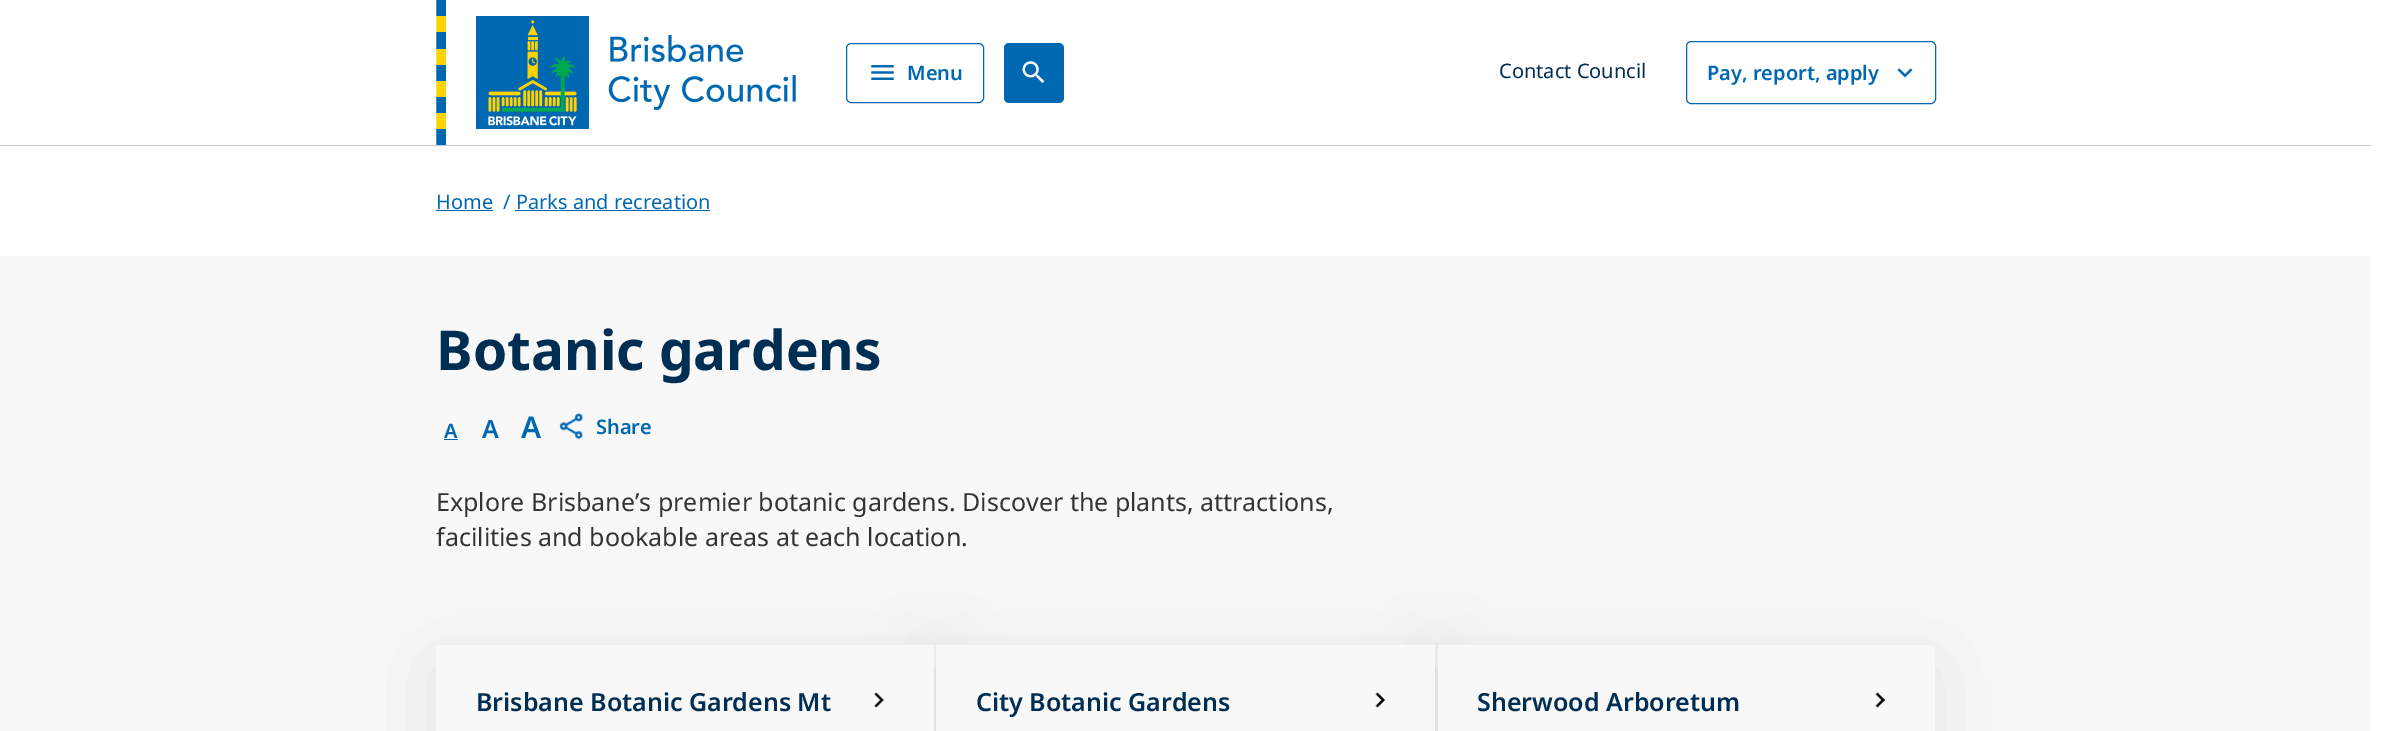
%!PS
<< /PageSize [2390 731] /PageUsesTransparency true >> setpagedevice
/fl/fill load def
/st/stroke load def
/co { dup -16 bitshift 255 div exch dup -8 bitshift 255 and 255 div exch 255 and 255 div setrgbcolor } def
/fn { [ exch dup neg 0 0 3 -1 roll 0 0 ] selectfont } def
/tx { co fn moveto show } def
/bx { co rectfill } def
/al { dup .setfillconstantalpha .setstrokeconstantalpha } def
/rr { 5 dict begin { /r /h /w /y /x } { exch def } forall
  x r add y moveto x w add y 2 copy h add r arct x w add y h add x 1 index r arct
  x y h add x y r arct x y 2 copy exch w add exch r arct closepath end } def
/sh { 12 dict begin { /a /b /q /h /w /y /x } { exch def } forall gsave /was 0 def
  9 -2 -9 { dup b mul 4 div /e exch def 1 sub .425 mul 2.718 exch exp 1 add a .99 .min exch div /now exch def
    1 1 now sub 1 was sub div sub al /was now def
    w h .min e 2 mul add 0 gt { x e sub y e sub w e 2 mul add h e 2 mul add
      q e add b .6 mul add w h .min 2 div e add .min 0 .max rr fill } if } for grestore end } def
/im { 5 dict begin { /h /w /y /x /name } { exch def } forall
  gsave x y translate w h scale
  w h 8 [w 0 0 h 0 0] name (r) file false 3 colorimage grestore end } def
0 .pushpdf14devicefilter
0 731 translate 1 -1 scale
4 setmiterlimit
0 0 2390 731 16#FFFFFF bx
0 145 2371 1 16#CCCCCC bx
(media/1.raw) 436 0 360 145 im
16#0067B1 co
846.5 43.5 137 59 4.5 rr st
(media/2.raw) 871 65 23 15 im
1004 43 60 60 5 rr fl
(media/3.raw) 1022 61 23 22 im
1686.5 41.5 249 62 4.5 rr st
(media/4.raw) 1897 68 16 10 im
436 210 57 1 16#0067B1 bx
515 210 195 1 16#0067B1 bx
0 256 2371 475 16#F8F8F8 bx
444 439 14 1 16#0067B1 bx
(media/5.raw) 559 413 25 27 im
16#000000 co
436 665 498 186 0 40 .08 sh
936 665 499 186 0 40 .08 sh
436 645 498 86 16#F8F8F8 bx
(media/6.raw) 874 692 10 16 im
16#000000 co
1438 665 497 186 0 40 .08 sh
936 645 499 86 16#F8F8F8 bx
(media/7.raw) 1375 692 10 16 im
1438 645 497 86 16#F8F8F8 bx
(media/8.raw) 1875 692 10 16 im
(Menu) 907 80 /NotoSans-SemiBold 20 16#0067B1 tx
(Contact Council) 1499 78 /NotoSans-Regular 20 16#002E53 tx
(Pay, report, apply) 1707 80 /NotoSans-SemiBold 20 16#0067B1 tx
(Home) 436 209 /NotoSans-Regular 20 16#0067B1 tx
(/ Parks and recreation) 503 209 /NotoSans-Regular 20 16#0067B1 tx
(Botanic gardens) 436 370 /NotoSans-Bold 55 16#002E53 tx
(A) 444 438 /NotoSans-SemiBold 20 16#0067B1 tx
(A) 482 438 /NotoSans-SemiBold 25 16#0067B1 tx
(A) 521 438 /NotoSans-SemiBold 30 16#0067B1 tx
(Share) 596 434 /NotoSans-SemiBold 20 16#0067B1 tx
(Explore Brisbane’s premier botanic gardens. Discover the plants, attractions,) 436 511 /NotoSans-Regular 25 16#333333 tx
(facilities and bookable areas at each location.) 436 546 /NotoSans-Regular 25 16#333333 tx
(Brisbane Botanic Gardens Mt) 476 711 /NotoSans-SemiBold 25 16#002E53 tx
(City Botanic Gardens) 976 711 /NotoSans-SemiBold 25 16#002E53 tx
(Sherwood Arboretum) 1477 711 /NotoSans-SemiBold 25 16#002E53 tx
.poppdf14devicefilter showpage
